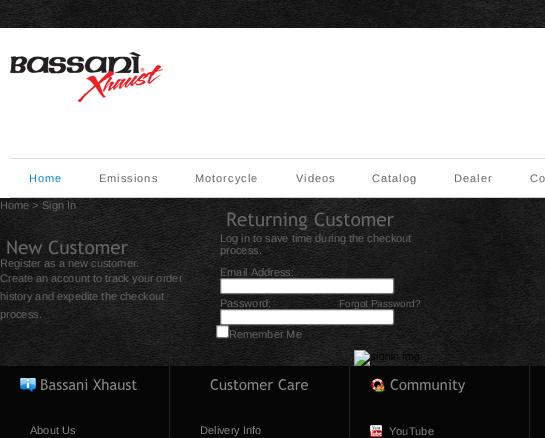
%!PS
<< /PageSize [545 438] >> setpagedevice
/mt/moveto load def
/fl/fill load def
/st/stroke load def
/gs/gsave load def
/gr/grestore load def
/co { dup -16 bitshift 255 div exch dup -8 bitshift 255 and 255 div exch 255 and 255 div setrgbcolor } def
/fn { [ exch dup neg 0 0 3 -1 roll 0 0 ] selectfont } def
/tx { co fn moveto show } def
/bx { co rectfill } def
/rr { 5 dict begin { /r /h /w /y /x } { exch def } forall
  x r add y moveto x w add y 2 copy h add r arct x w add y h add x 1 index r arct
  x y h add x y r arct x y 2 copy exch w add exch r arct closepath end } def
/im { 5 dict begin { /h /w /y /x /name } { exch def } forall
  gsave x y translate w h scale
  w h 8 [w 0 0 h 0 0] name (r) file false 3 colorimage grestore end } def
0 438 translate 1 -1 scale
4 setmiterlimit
0 0 545 438 16#FFFFFF bx
(media/1.raw) 0 0 545 366 im
0 28 545 170 16#FFFFFF bx
10 158 535 1 16#DCDCDC bx
(media/2.raw) 10 52 153 50 im
10 197 535 1 16#CDCDCD bx
(media/3.raw) 7 240 35 15 im
(media/4.raw) 48 240 80 15 im
(media/5.raw) 227 212 80 18 im
(media/6.raw) 314 212 80 15 im
16#FFFFFF co
220.5 278.5 173 15 1.5 rr gs fl gr
16#767676 co
st
16#FFFFFF co
216.5 325.5 12 12 1.5 rr gs fl gr
16#767676 co
st
(media/7.raw) 354 350 66 16 im
0 366 545 72 16#050505 bx
169 366 1 72 16#242424 bx
(media/8.raw) 20 378 16 14 im
(media/9.raw) 41 379 47 11 im
(media/10.raw) 93 379 44 11 im
349 366 1 72 16#242424 bx
(media/11.raw) 210 379 63 11 im
(media/12.raw) 278 379 30 11 im
529 366 1 72 16#242424 bx
(media/13.raw) 371 378 15 14 im
(media/14.raw) 390 379 75 14 im
(media/15.raw) 370 425 12 12 im
/LiberationSans-Regular 11 fn
16#008BCC co
29 182 mt 1 0 (Home) ashow
16#666666 co
99 182 mt 1 0 (Emissions) ashow
195 182 mt 1 0 (Motorcycle) ashow
296 182 mt 1 0 (Videos) ashow
372 182 mt 1 0 (Catalog) ashow
454 182 mt 1 0 (Dealer) ashow
530 182 mt 1 0 (Co) ashow
(Home > Sign In) 0 209 /LiberationSans-Regular 11 16#666666 tx
(Register as a new customer.) 0 267 /LiberationSans-Regular 11 16#666666 tx
(Create an account to track your order) 0 282 /LiberationSans-Regular 11 16#666666 tx
(history and expedite the checkout) 0 300 /LiberationSans-Regular 11 16#666666 tx
(process.) 0 318 /LiberationSans-Regular 11 16#666666 tx
(Log in to save time during the checkout) 220 242 /LiberationSans-Regular 11 16#666666 tx
(process.) 220 254 /LiberationSans-Regular 11 16#666666 tx
(Email Address:) 220 276 /LiberationSans-Regular 11 16#666666 tx
(Password:) 220 307 /LiberationSans-Regular 11 16#666666 tx
(Forgot Password?) 339 307 /LiberationSans-Regular 10 16#666666 tx
16#FFFFFF co
220.5 309.5 173 15 1.5 rr gs fl gr
16#767676 co
st
(Remember Me) 229 338 /LiberationSans-Regular 11 16#666666 tx
(About Us) 30 434 /LiberationSans-Regular 11 16#888888 tx
(Delivery Info) 200 434 /LiberationSans-Regular 11 16#888888 tx
(YouTube) 389 435 /LiberationSans-Regular 11 16#888888 tx
showpage
